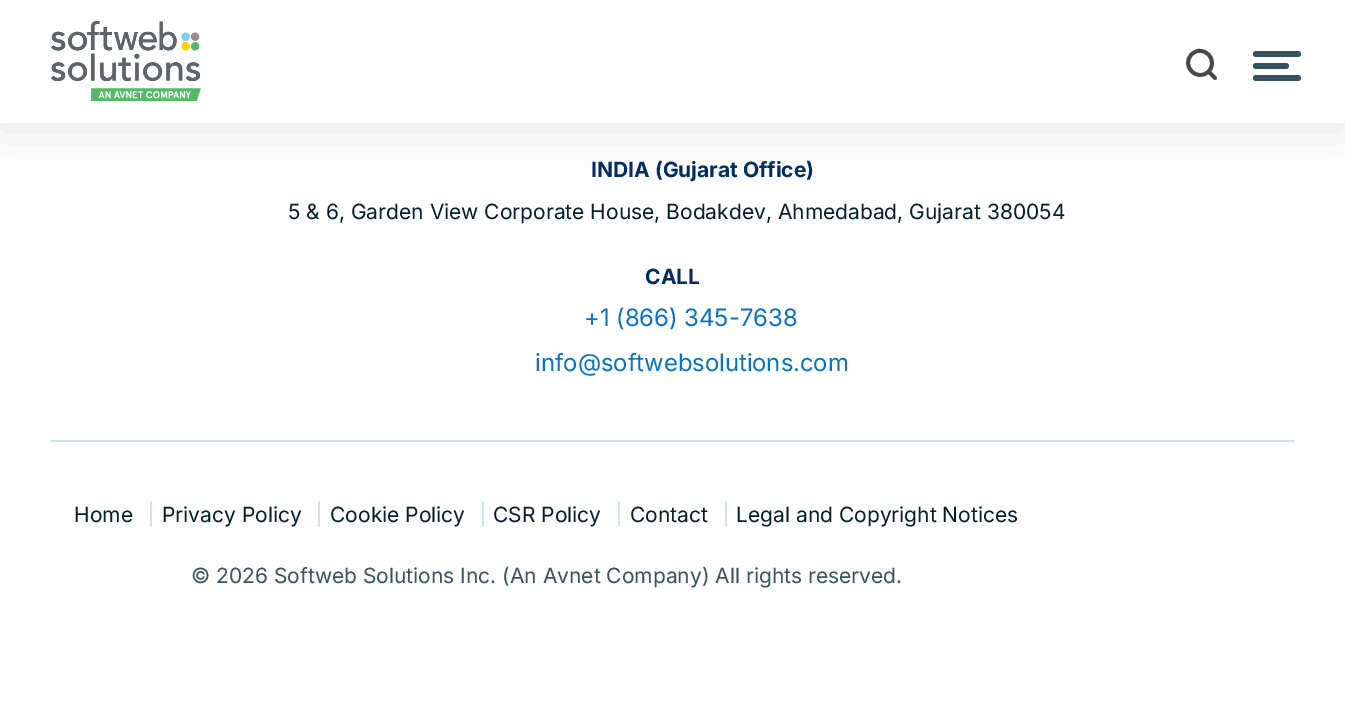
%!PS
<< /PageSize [1345 708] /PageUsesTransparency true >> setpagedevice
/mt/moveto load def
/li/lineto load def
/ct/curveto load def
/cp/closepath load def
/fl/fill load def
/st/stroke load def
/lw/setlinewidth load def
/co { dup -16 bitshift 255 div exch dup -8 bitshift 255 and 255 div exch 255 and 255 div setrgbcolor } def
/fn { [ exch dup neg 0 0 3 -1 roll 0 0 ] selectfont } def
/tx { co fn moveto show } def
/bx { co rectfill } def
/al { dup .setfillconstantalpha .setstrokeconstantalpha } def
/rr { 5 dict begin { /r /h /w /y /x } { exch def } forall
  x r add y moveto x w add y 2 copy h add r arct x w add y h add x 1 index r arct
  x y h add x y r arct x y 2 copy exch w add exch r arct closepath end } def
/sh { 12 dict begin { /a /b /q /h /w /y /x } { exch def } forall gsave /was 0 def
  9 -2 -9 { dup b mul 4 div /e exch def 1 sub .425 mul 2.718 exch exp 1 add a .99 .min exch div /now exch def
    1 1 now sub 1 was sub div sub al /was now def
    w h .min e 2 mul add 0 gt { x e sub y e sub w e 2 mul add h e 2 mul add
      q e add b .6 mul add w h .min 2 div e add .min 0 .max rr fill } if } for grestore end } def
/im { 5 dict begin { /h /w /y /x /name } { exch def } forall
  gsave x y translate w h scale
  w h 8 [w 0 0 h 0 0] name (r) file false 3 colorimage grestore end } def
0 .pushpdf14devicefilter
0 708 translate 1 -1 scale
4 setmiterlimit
0 0 1345 708 16#FFFFFF bx
16#000000 co
0 6 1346 123 0 22.5 .1 sh
0 0 1345 123 16#FFFFFF bx
(media/1.raw) 51 21 150 80 im
16#484848 co
3.8 lw
1 setlinecap
1 setlinejoin
1215 78 mt 1208.5 71.5 li 1208.5 71.5 mt 1217 63 1209 49 1197.5 51 ct 1195.5 51.5 1193 53 1191.5 54.5 ct 1180.5 66 1197.5 82.5 1208.5 71.5 ct cp st
16#355360 co
1253 51 48 6 3 rr fl
1253 63 36 6 3 rr fl
1253 75 48 6 3 rr fl
51 440 1244 2 16#CEE4EE bx
150 501 2 26 16#CEE4EE bx
318 501 2 26 16#CEE4EE bx
482 501 2 26 16#CEE4EE bx
618 501 2 26 16#CEE4EE bx
725 501 2 26 16#CEE4EE bx
(INDIA \(Gujarat Office\)) 591 177 /Inter-Bold 21 16#012D61 tx
(5 & 6, Garden View Corporate House, Bodakdev, Ahmedabad, Gujarat 380054) 288 219 /Inter-Regular 21 16#051E29 tx
(CALL) 645 284 /Inter-Bold 21 16#012D61 tx
(+1 \(866\) 345-7638) 584 326 /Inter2-Regular 24 16#0A72C2 tx
(info@softwebsolutions.com) 535 371 /Inter2-Regular 24 16#0A72C2 tx
(Home) 74 522 /Inter-Regular 21 16#051E29 tx
(Privacy Policy) 162 522 /Inter-Regular 21 16#051E29 tx
(Cookie Policy) 330 522 /Inter-Regular 21 16#051E29 tx
(CSR Policy) 493 522 /Inter-Regular 21 16#051E29 tx
(Contact) 630 522 /Inter-Regular 21 16#051E29 tx
(Legal and Copyright Notices) 736 522 /Inter-Regular 21 16#051E29 tx
(© 2026 Softweb Solutions Inc. \(An Avnet Company\) All rights reserved.) 191 583 /Inter-Regular 21 16#355360 tx
.poppdf14devicefilter showpage
